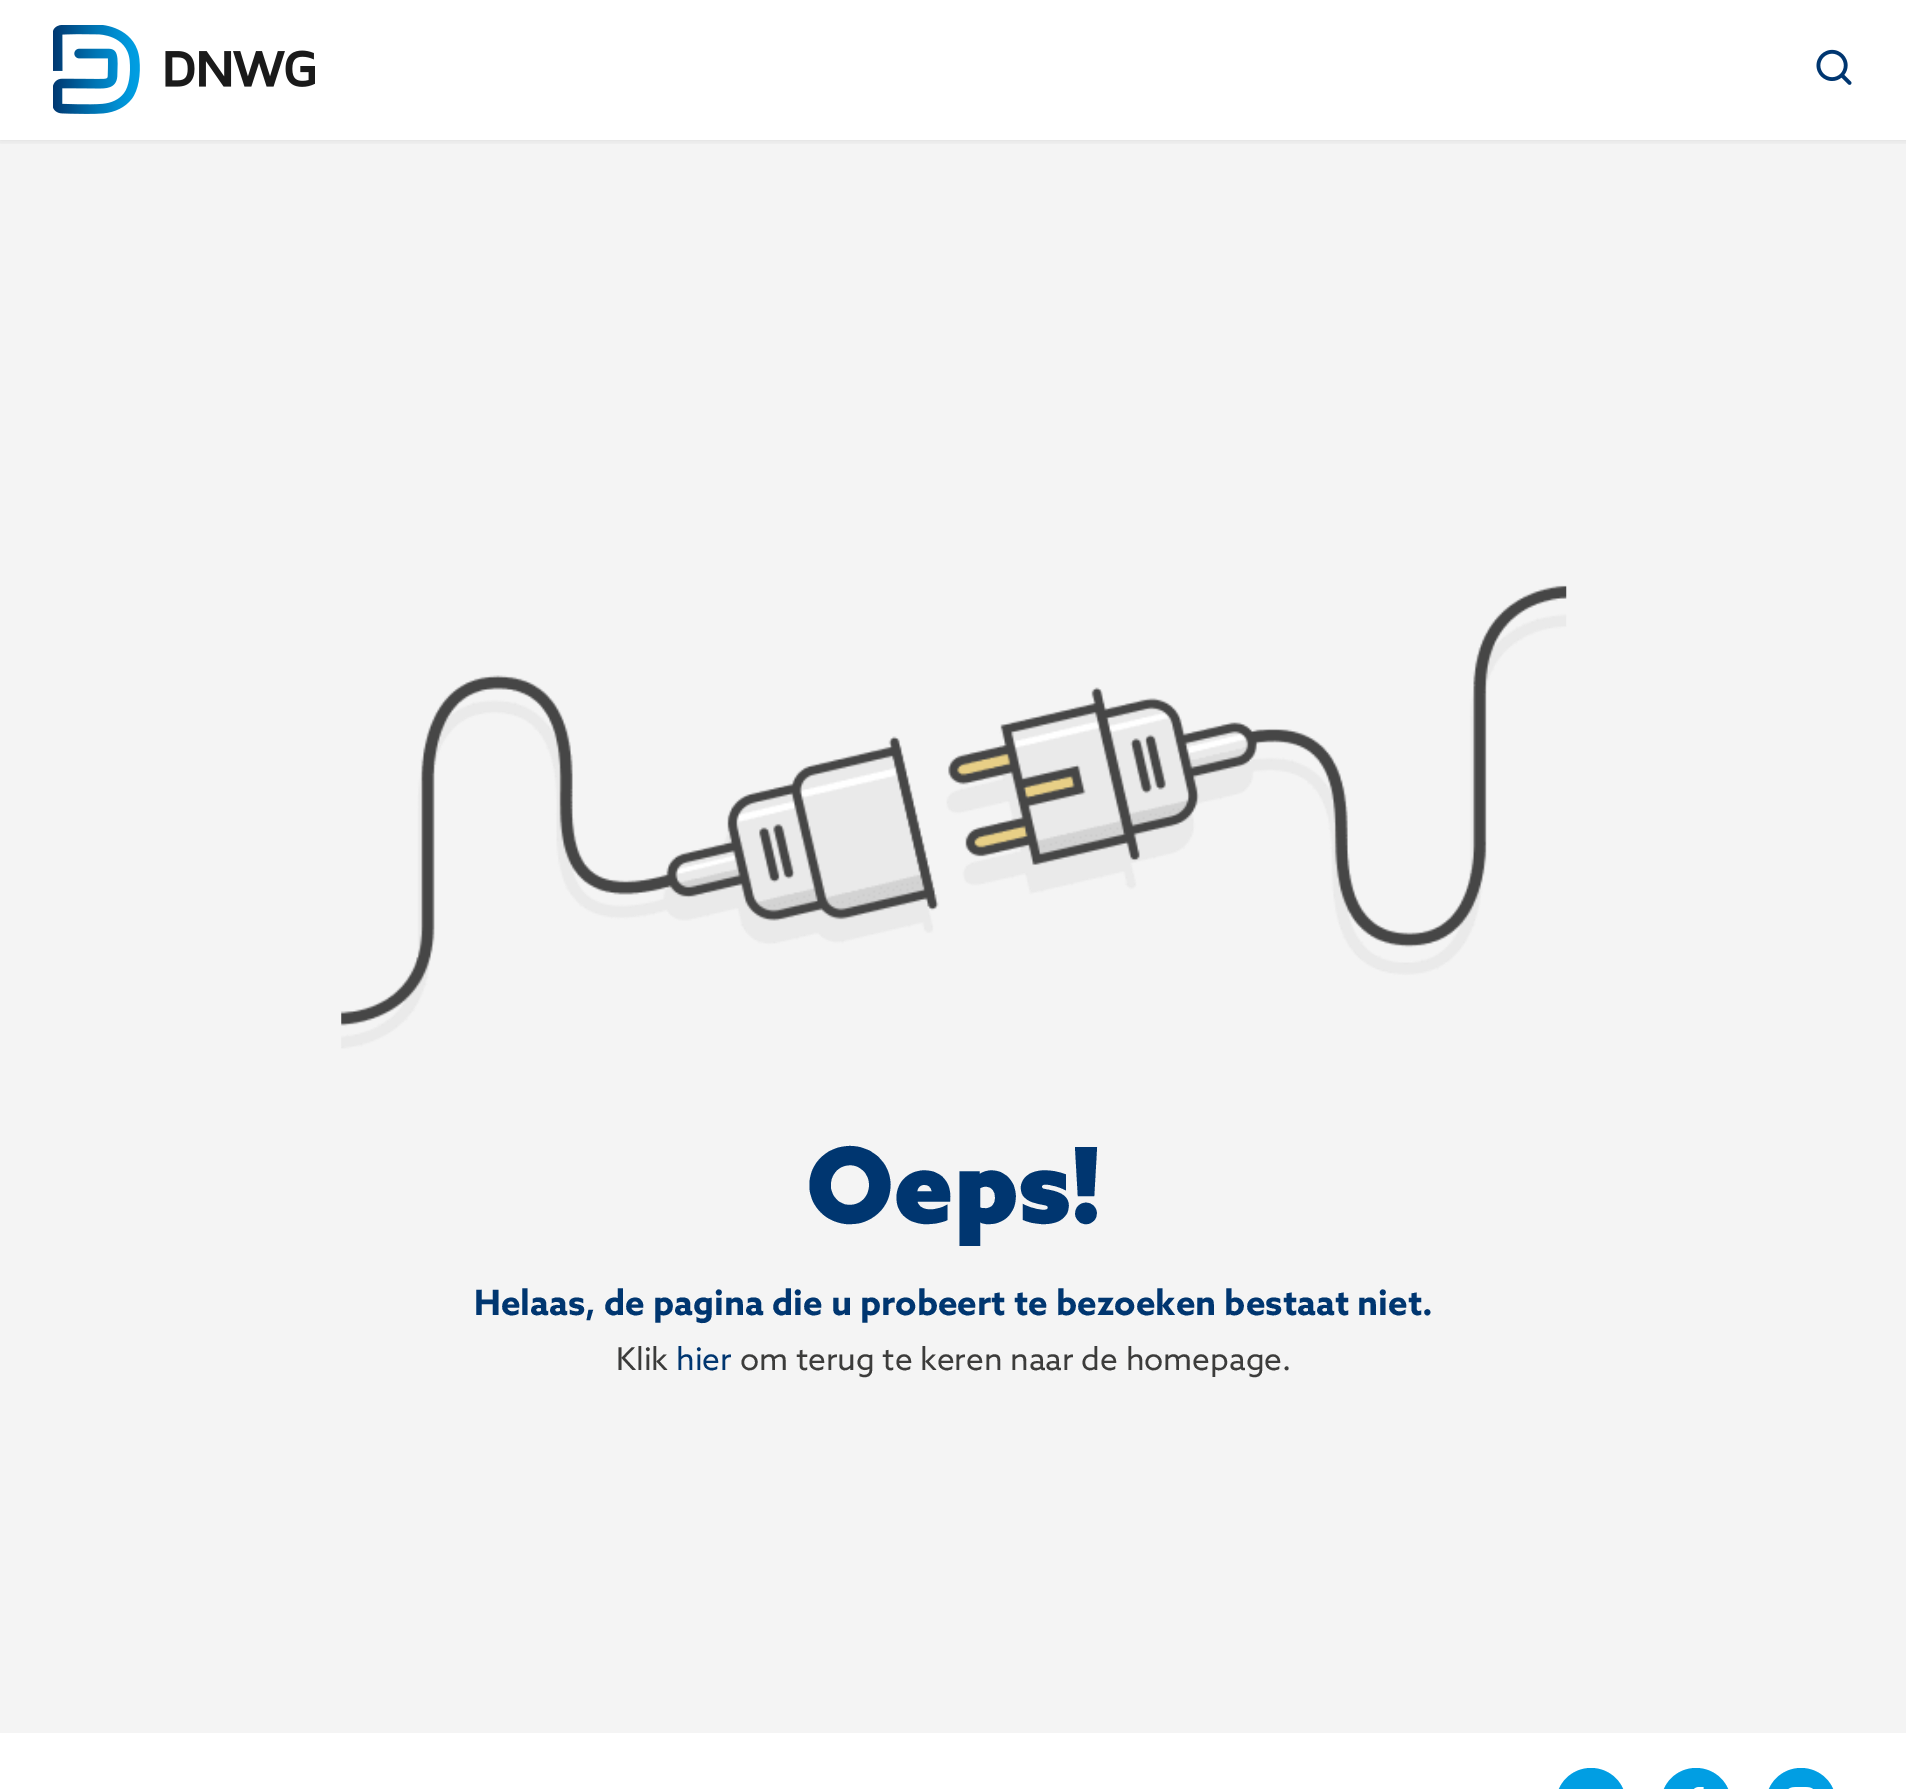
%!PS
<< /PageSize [1906 1789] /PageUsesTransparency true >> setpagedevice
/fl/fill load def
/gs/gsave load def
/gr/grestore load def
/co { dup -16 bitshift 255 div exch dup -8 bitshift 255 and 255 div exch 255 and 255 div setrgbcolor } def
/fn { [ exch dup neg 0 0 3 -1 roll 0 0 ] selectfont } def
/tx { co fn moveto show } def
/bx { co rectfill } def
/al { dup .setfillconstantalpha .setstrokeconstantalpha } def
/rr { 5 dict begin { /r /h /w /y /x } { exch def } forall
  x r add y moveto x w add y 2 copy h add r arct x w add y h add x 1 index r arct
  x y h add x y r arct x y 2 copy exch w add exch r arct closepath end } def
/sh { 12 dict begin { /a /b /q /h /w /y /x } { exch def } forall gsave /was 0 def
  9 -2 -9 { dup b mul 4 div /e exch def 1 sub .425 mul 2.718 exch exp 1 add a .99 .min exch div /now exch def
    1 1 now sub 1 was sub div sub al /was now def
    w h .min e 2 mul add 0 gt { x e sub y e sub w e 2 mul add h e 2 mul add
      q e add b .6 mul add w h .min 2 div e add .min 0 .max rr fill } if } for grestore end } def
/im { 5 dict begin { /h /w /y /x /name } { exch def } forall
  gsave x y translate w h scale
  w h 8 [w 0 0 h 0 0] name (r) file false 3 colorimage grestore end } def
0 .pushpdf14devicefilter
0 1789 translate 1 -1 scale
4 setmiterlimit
0 0 1906 1789 16#FFFFFF bx
0 140 1906 1593 16#F4F4F4 bx
gs
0 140 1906 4 rectclip
16#000000 co
0 0 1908 140 0 4.5 .1 sh
gr
(media/1.raw) 53 25 262 89 im
(media/2.raw) 1816 49 36 36 im
(media/3.raw) 341 585 1226 464 im
16#019EE3 co
1556 1768 70 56 35 rr fl
1661 1768 70 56 35 rr fl
(media/4.raw) 1694 1787 10 2 im
1766 1768 70 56 35 rr fl
(media/5.raw) 1788 1787 25 2 im
(Oeps!) 806 1223 /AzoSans-Regular 105 16#003670 tx
(Helaas, de pagina die u probeert te bezoeken bestaat niet.) 474 1315 /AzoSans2-Regular 35 16#003670 tx
(Klik) 616 1370 /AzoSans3-Regular 31.5 16#3C3C3B tx
(hier) 676 1370 /AzoSans3-Regular 31.5 16#003670 tx
(om terug te keren naar de homepage.) 740 1370 /AzoSans3-Regular 31.5 16#3C3C3B tx
.poppdf14devicefilter showpage
